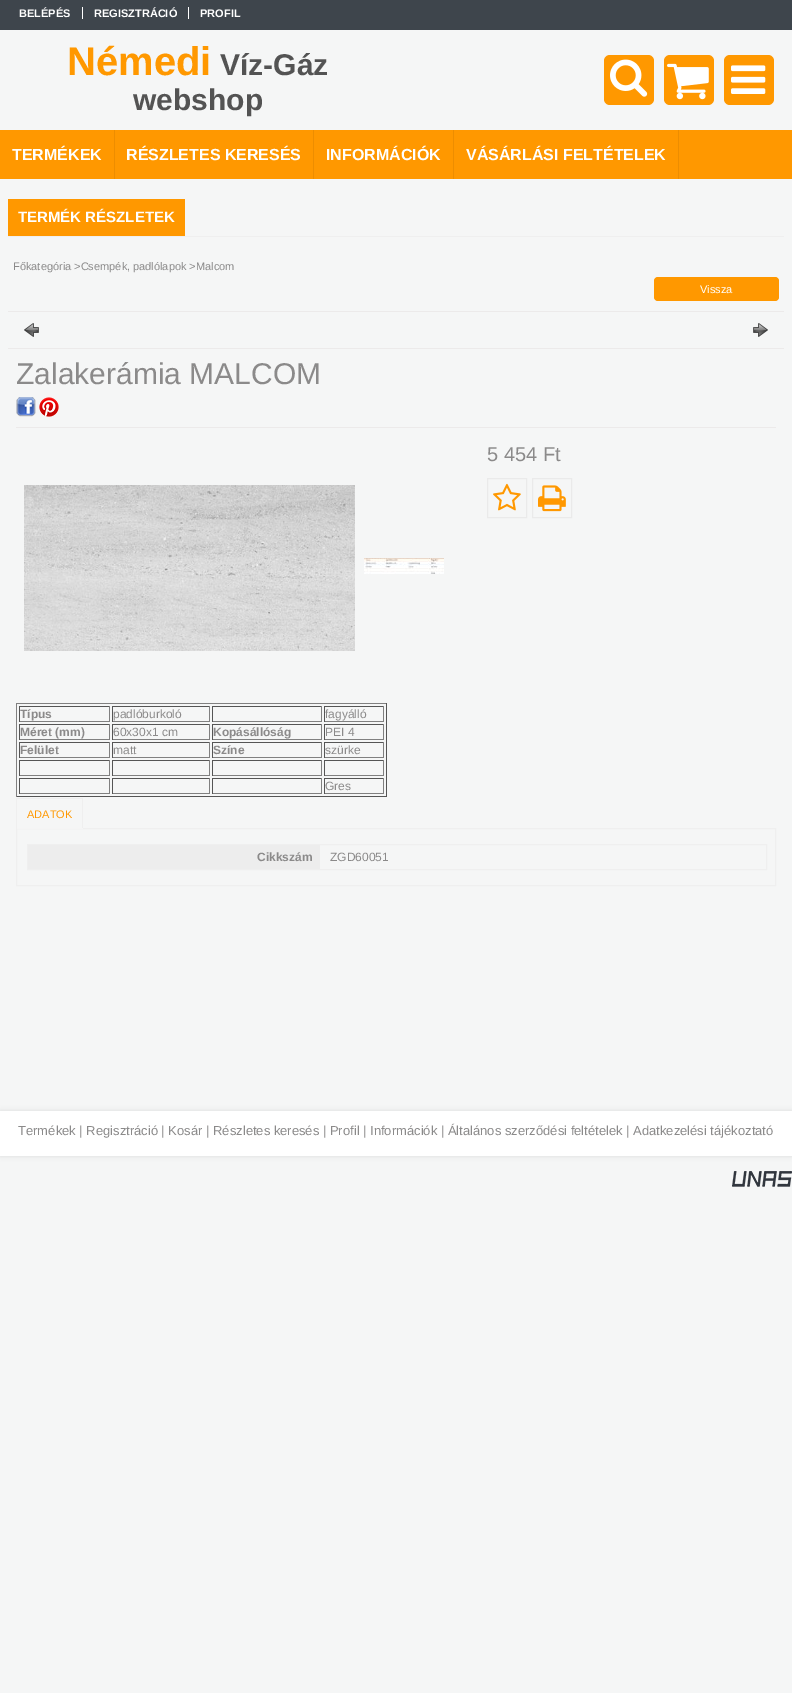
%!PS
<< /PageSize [792 1693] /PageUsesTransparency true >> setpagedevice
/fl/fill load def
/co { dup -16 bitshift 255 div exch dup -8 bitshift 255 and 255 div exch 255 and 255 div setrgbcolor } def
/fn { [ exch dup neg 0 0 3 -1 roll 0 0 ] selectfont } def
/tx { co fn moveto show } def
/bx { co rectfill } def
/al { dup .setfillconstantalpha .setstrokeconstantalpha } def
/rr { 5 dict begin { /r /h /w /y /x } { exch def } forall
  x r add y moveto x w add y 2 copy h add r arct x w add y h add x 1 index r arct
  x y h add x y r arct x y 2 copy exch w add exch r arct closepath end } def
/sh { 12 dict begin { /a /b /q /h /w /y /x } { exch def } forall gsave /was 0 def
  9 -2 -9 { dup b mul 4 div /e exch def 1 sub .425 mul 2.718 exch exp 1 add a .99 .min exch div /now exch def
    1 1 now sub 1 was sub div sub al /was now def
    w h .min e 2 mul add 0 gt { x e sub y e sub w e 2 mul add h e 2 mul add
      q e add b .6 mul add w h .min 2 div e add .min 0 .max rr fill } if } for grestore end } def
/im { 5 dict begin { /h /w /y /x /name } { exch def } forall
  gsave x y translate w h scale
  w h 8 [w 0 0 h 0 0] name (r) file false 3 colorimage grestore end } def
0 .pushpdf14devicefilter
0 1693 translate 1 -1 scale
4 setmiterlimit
0 0 792 1693 16#F5F6F6 bx
0 0 792 30 16#3E454C bx
82 7 1 12 16#FFFFFF bx
188 7 1 12 16#FFFFFF bx
16#FF9800 co
604 55 50 50 6 rr fl
(media/1.raw) 610 59 38 38 im
664 55 50 50 6 rr fl
(media/2.raw) 667 63 42 37 im
724 55 50 50 6 rr fl
(media/3.raw) 731 65 35 29 im
0 130 792 49 16#FF9800 bx
114 130 1 49 16#ED8D00 bx
313 130 1 49 16#ED8D00 bx
453 130 1 49 16#ED8D00 bx
678 130 1 49 16#ED8D00 bx
8 236 776 1 16#EFEFEF bx
8 199 177 37 16#FF9800 bx
654 277 125 24 4 rr fl
8 311 776 1 16#ECEAEA bx
(media/4.raw) 24 323 15 14 im
(media/5.raw) 753 323 15 14 im
8 348 776 1 16#ECEAEA bx
16 427 760 1 16#ECEAEA bx
(media/6.raw) 16 397 20 20 im
(media/7.raw) 39 397 20 20 im
16#EAEAEA co
487.5 478.5 39 39 rectstroke
(media/8.raw) 493 483 28 28 im
532.5 478.5 39 39 rectstroke
(media/9.raw) 538 485 28 27 im
(media/10.raw) 24 485 331 166 im
(media/11.raw) 364 558 80 16 im
16 703 371 1 16#808080 bx
386 703 1 94 16#555555 bx
16 796 371 1 16#555555 bx
16 703 1 94 16#808080 bx
19 706 91 1 16#555555 bx
109 706 1 16 16#808080 bx
19 721 91 1 16#808080 bx
19 706 1 16 16#555555 bx
112 706 98 1 16#555555 bx
209 706 1 16 16#808080 bx
112 721 98 1 16#808080 bx
112 706 1 16 16#555555 bx
212 706 110 1 16#555555 bx
321 706 1 16 16#808080 bx
212 721 110 1 16#808080 bx
212 706 1 16 16#555555 bx
324 706 60 1 16#555555 bx
383 706 1 16 16#808080 bx
324 721 60 1 16#808080 bx
324 706 1 16 16#555555 bx
19 724 91 1 16#555555 bx
109 724 1 16 16#808080 bx
19 739 91 1 16#808080 bx
19 724 1 16 16#555555 bx
112 724 98 1 16#555555 bx
209 724 1 16 16#808080 bx
112 739 98 1 16#808080 bx
112 724 1 16 16#555555 bx
212 724 110 1 16#555555 bx
321 724 1 16 16#808080 bx
212 739 110 1 16#808080 bx
212 724 1 16 16#555555 bx
324 724 60 1 16#555555 bx
383 724 1 16 16#808080 bx
324 739 60 1 16#808080 bx
324 724 1 16 16#555555 bx
19 742 91 1 16#555555 bx
109 742 1 16 16#808080 bx
19 757 91 1 16#808080 bx
19 742 1 16 16#555555 bx
112 742 98 1 16#555555 bx
209 742 1 16 16#808080 bx
112 757 98 1 16#808080 bx
112 742 1 16 16#555555 bx
212 742 110 1 16#555555 bx
321 742 1 16 16#808080 bx
212 757 110 1 16#808080 bx
212 742 1 16 16#555555 bx
324 742 60 1 16#555555 bx
383 742 1 16 16#808080 bx
324 757 60 1 16#808080 bx
324 742 1 16 16#555555 bx
19 760 91 1 16#555555 bx
109 760 1 16 16#808080 bx
19 775 91 1 16#808080 bx
19 760 1 16 16#555555 bx
112 760 98 1 16#555555 bx
209 760 1 16 16#808080 bx
112 775 98 1 16#808080 bx
112 760 1 16 16#555555 bx
212 760 110 1 16#555555 bx
321 760 1 16 16#808080 bx
212 775 110 1 16#808080 bx
212 760 1 16 16#555555 bx
324 760 60 1 16#555555 bx
383 760 1 16 16#808080 bx
324 775 60 1 16#808080 bx
324 760 1 16 16#555555 bx
19 778 91 1 16#555555 bx
109 778 1 16 16#808080 bx
19 793 91 1 16#808080 bx
19 778 1 16 16#555555 bx
112 778 98 1 16#555555 bx
209 778 1 16 16#808080 bx
112 793 98 1 16#808080 bx
112 778 1 16 16#555555 bx
212 778 110 1 16#555555 bx
321 778 1 16 16#808080 bx
212 793 110 1 16#808080 bx
212 778 1 16 16#555555 bx
324 778 60 1 16#555555 bx
383 778 1 16 16#808080 bx
324 793 60 1 16#808080 bx
324 778 1 16 16#555555 bx
16 798 67 1 16#EFEFEF bx
16.5 828.5 759 57 rectstroke
82 798 1 31 16#EFEFEF bx
16 828 67 1 16#F5F5F5 bx
16 798 1 31 16#EFEFEF bx
27.5 844.5 739 25 rectstroke
28 845 292 24 16#EDEDED bx
16#000000 co
0 1111 792 45 0 2.5 .1 sh
0 1111 792 45 16#FFFFFF bx
(media/12.raw) 732 1171 60 16 im
(BELÉPÉS) 19 17 /LiberationSans-Bold 11 16#FFFFFF tx
(REGISZTRÁCIÓ) 94 17 /LiberationSans-Bold 11 16#FFFFFF tx
(PROFIL) 200 17 /LiberationSans-Bold 11 16#FFFFFF tx
(Némedi) 67 75 /LiberationSans-Bold 40 16#FF9800 tx
(Víz-Gáz) 220 75 /LiberationSans-Bold 30 16#535353 tx
(webshop) 133 110 /LiberationSans-Bold 30 16#535353 tx
(TERMÉKEK) 12 160 /LiberationSans-Bold 16 16#FFFFFF tx
(RÉSZLETES KERESÉS) 126 160 /LiberationSans-Bold 16 16#FFFFFF tx
(INFORMÁCIÓK) 326 160 /LiberationSans-Bold 16 16#FFFFFF tx
(VÁSÁRLÁSI FELTÉTELEK) 466 160 /LiberationSans-Bold 16 16#FFFFFF tx
(TERMÉK RÉSZLETEK) 18 222 /LiberationSans-Bold 15 16#FFFFFF tx
(Főkategória >Csempék, padlólapok >Malcom) 13 270 /LiberationSans-Regular 11 16#8B8A8A tx
(Vissza) 700 293 /LiberationSans-Regular 11 16#FFFFFF tx
(Zalakerámia MALCOM) 16 384 /LiberationSans-Regular 30 16#8B8A8A tx
(5 454 Ft) 487 461 /LiberationSans-Regular 20 16#8B8A8A tx
(Típus) 20 718 /LiberationSans-Bold 12 16#8B8A8A tx
(padlóburkoló) 113 718 /LiberationSans-Regular 12 16#8B8A8A tx
(fagyálló) 325 718 /LiberationSans-Regular 12 16#8B8A8A tx
(Méret \(mm\)) 20 736 /LiberationSans-Bold 12 16#8B8A8A tx
(60x30x1 cm) 113 736 /LiberationSans-Regular 12 16#8B8A8A tx
(Kopásállóság) 213 736 /LiberationSans-Bold 12 16#8B8A8A tx
(PEI 4) 325 736 /LiberationSans-Regular 12 16#8B8A8A tx
(Felület) 20 754 /LiberationSans-Bold 12 16#8B8A8A tx
(matt) 113 754 /LiberationSans-Regular 12 16#8B8A8A tx
(Színe) 213 754 /LiberationSans-Bold 12 16#8B8A8A tx
(szürke) 325 754 /LiberationSans-Regular 12 16#8B8A8A tx
(Gres) 325 790 /LiberationSans-Regular 12 16#8B8A8A tx
(ADATOK) 27 818 /LiberationSans-Regular 11 16#FF9800 tx
(Cikkszám) 257 861 /LiberationSans-Bold 12 16#8B8A8A tx
(ZGD60051) 330 861 /LiberationSans-Regular 12 16#8B8A8A tx
(Termékek | Regisztráció | Kosár | Részletes keresés | Profil | Információk | Általános szerződési feltételek | Adatkezelési tájékoztató) 18 1135 /LiberationSans-Regular 13 16#8B8A8A tx
.poppdf14devicefilter showpage
